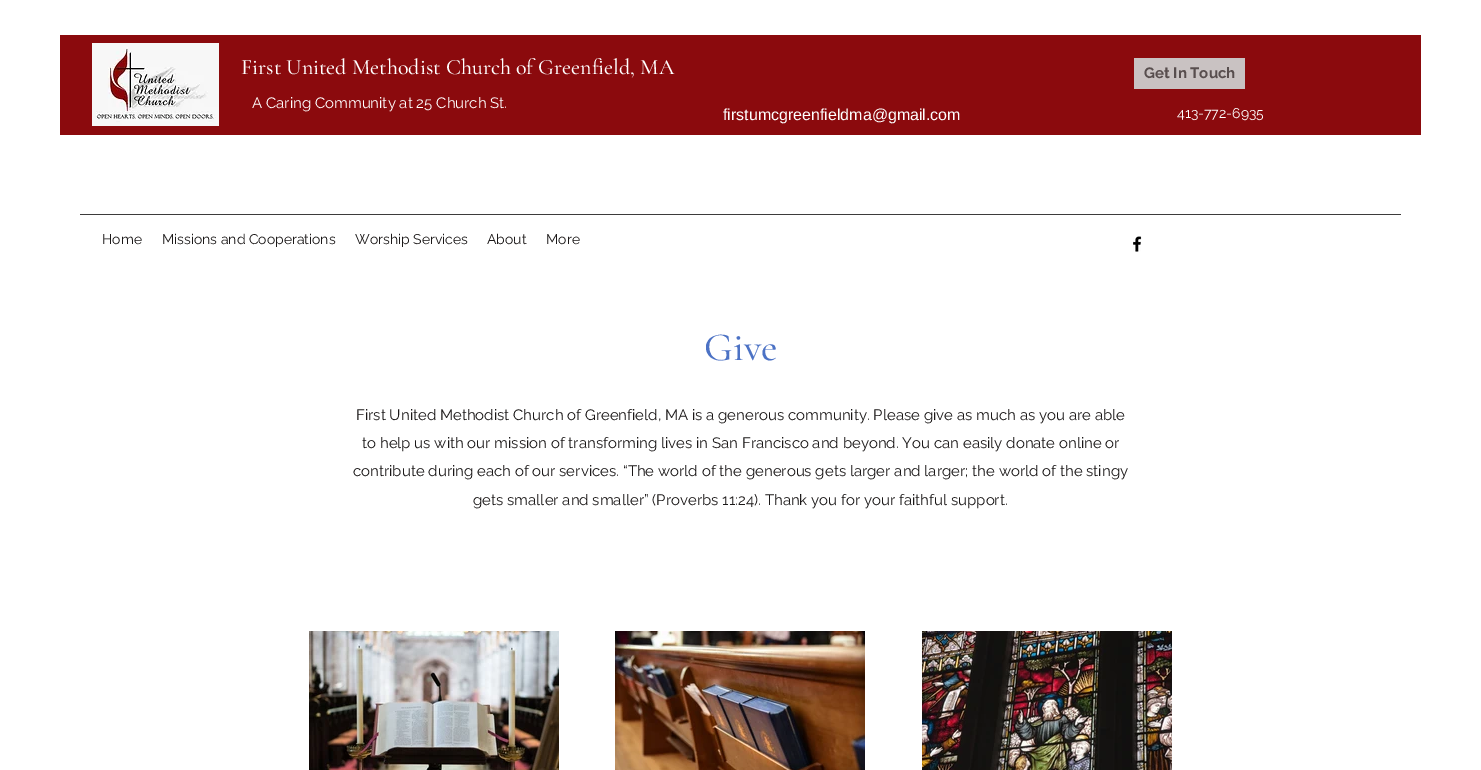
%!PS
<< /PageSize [1481 770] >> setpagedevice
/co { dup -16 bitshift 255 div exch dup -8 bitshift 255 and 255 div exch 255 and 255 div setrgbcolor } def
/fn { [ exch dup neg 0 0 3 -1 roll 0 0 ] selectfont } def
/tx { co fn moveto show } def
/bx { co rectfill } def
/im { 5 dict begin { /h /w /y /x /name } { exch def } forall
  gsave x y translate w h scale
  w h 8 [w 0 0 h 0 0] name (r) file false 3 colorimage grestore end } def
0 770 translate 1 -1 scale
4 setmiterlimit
0 0 1481 770 16#FFFFFF bx
60 35 1361 100 16#8B0A0D bx
(media/1.raw) 92 43 127 83 im
1134 58 111 31 16#C9C2C2 bx
80 214 1321 1 16#3D3B3B bx
(media/2.raw) 1133 236 9 16 im
(media/3.raw) 309 631 250 139 im
(media/4.raw) 615 631 250 139 im
(media/5.raw) 922 631 250 139 im
(First United Methodist Church of Greenfield, MA) 241 74 /CormorantGaramond-Medium 22 16#FFFFFF tx
(A Caring Community at 25 Church St.) 252 108 /Raleway-Regular 15 16#FFFFFF tx
(Get In Touch) 1144 78 /Raleway-Bold 15 16#584E4E tx
(413-772-6935) 1177 118 /Raleway-Regular 14 16#FFFFFF tx
(firstumcgreenfieldma@gmail.com) 723 120 /LiberationSans-Regular 16 16#FFFFFF tx
(Home) 102 244 /Raleway-Regular 14 16#1B1818 tx
(Missions and Cooperations) 162 244 /Raleway-Regular 14 16#1B1818 tx
(Worship Services) 355 244 /Raleway-Regular 14 16#1B1818 tx
(About) 487 244 /Raleway-Regular 14 16#1B1818 tx
(More) 546 244 /Raleway-Regular 14 16#1B1818 tx
(Give) 704 360 /CormorantGaramond-Medium 40 16#4C72C5 tx
(First United Methodist Church of Greenfield, MA is a generous community. Please give as much as you are able) 356 420 /Raleway-Regular 15 16#1B1818 tx
(to help us with our mission of transforming lives in San Francisco and beyond. You can easily donate online or) 362 448 /Raleway-Regular 15 16#1B1818 tx
(contribute during each of our services. “The world of the generous gets larger and larger; the world of the stingy) 353 476 /Raleway-Regular 15 16#1B1818 tx
(gets smaller and smaller” \(Proverbs 11:24\). Thank you for your faithful support.) 473 505 /Raleway-Regular 15 16#1B1818 tx
showpage
